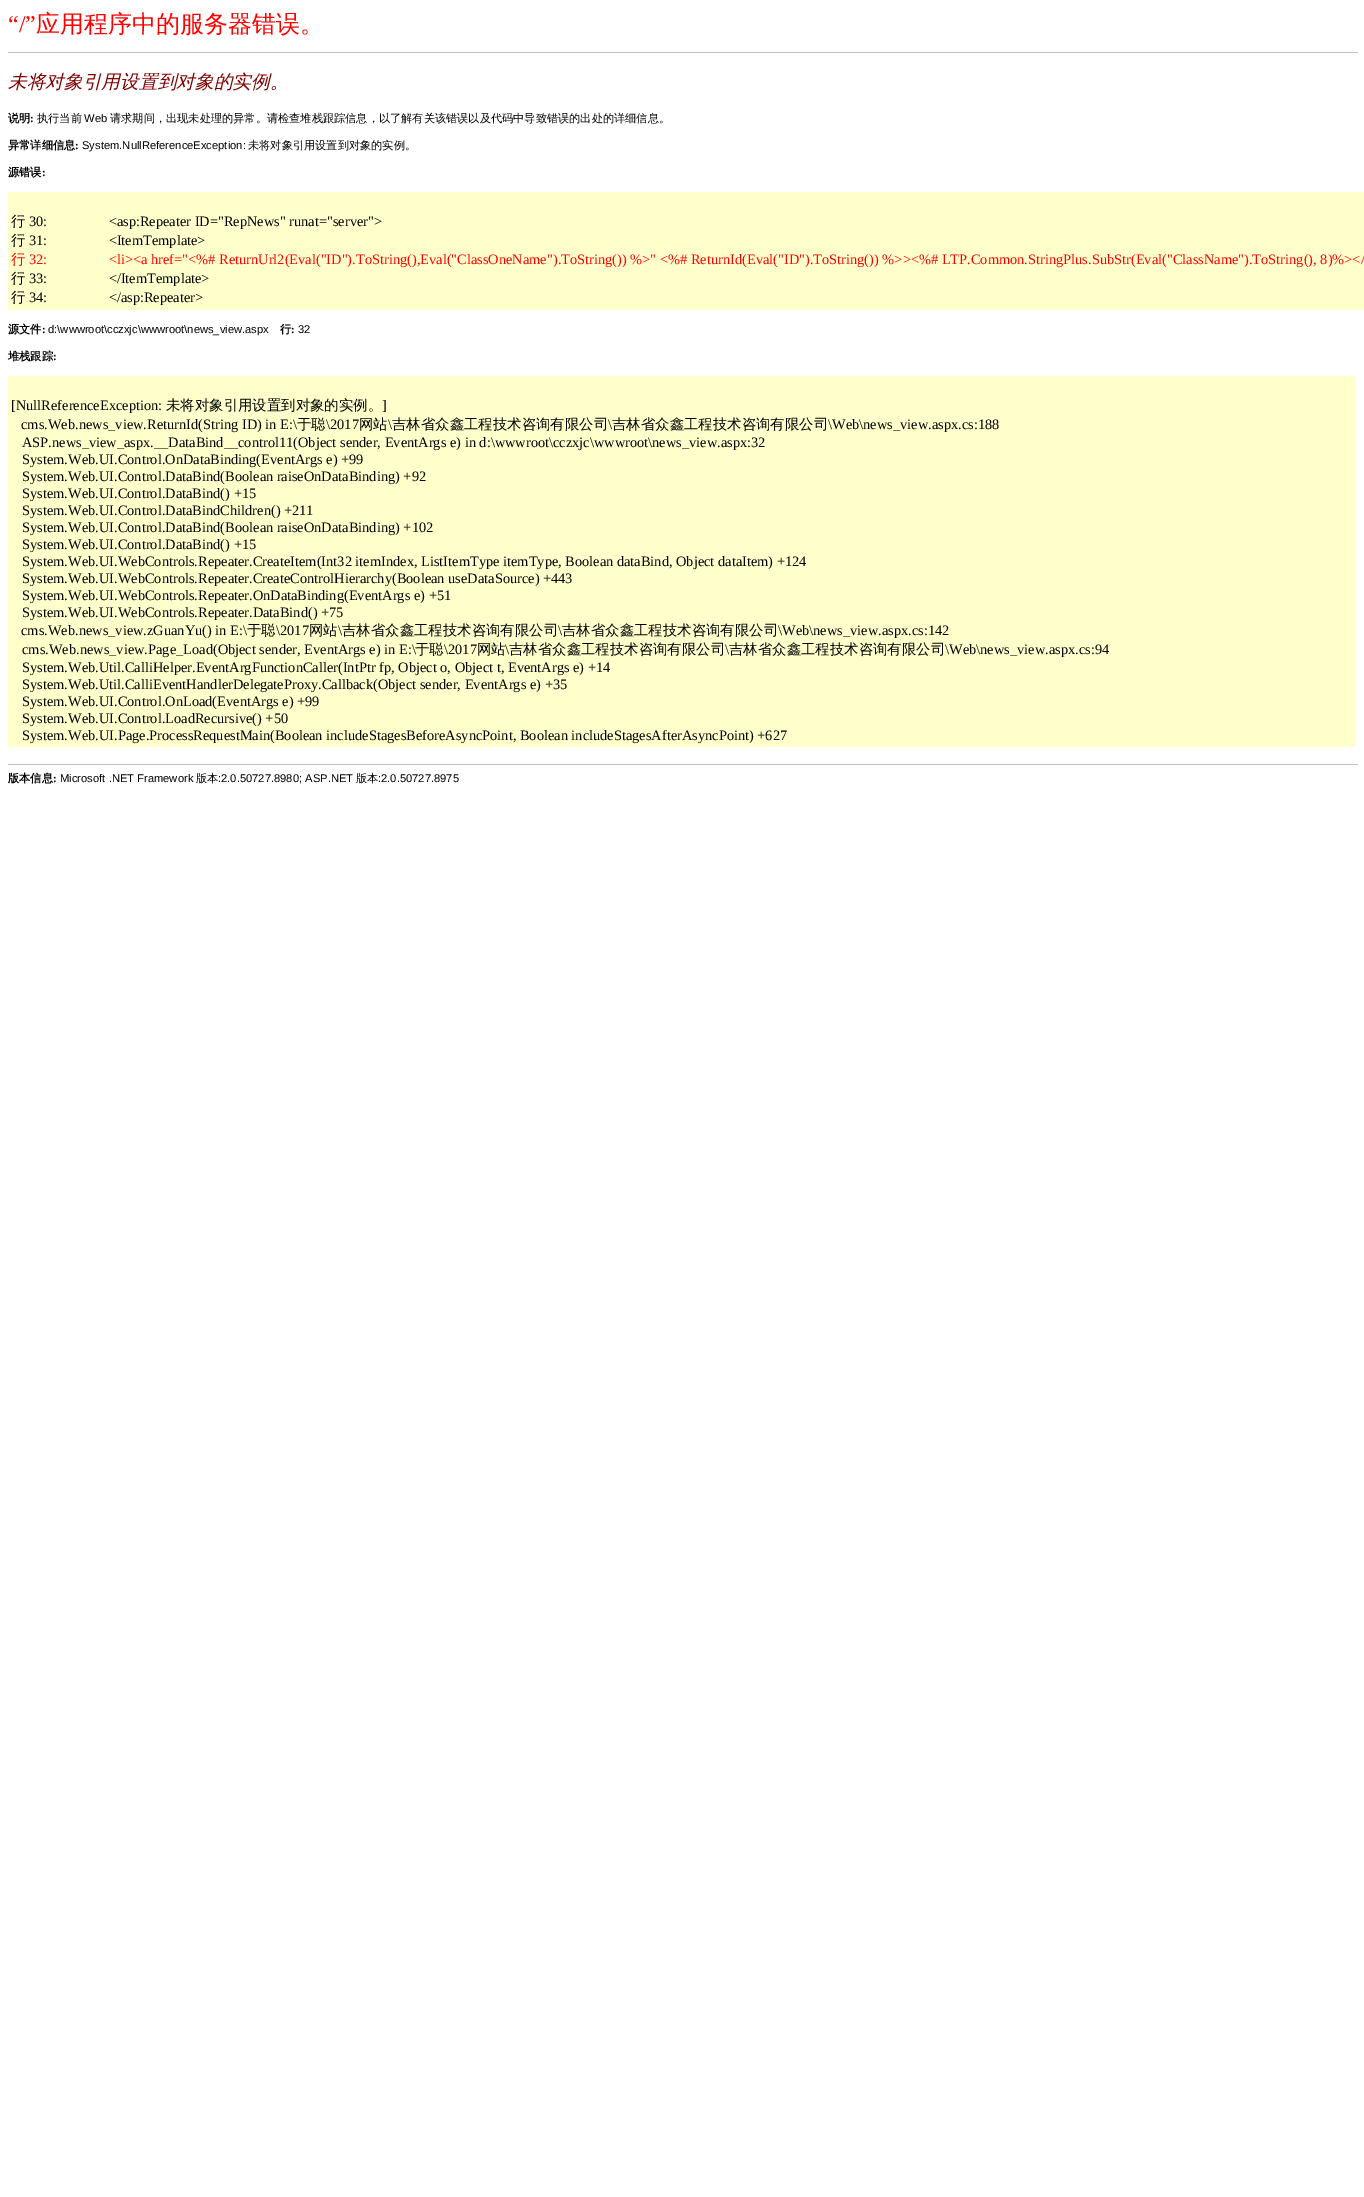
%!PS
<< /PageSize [1364 2197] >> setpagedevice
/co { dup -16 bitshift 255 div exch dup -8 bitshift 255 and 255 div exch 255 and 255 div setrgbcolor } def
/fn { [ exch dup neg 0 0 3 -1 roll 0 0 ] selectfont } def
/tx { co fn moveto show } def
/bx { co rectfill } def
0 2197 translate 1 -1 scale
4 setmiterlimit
0 0 1364 2197 16#FFFFFF bx
8 52 1350 1 16#C0C0C0 bx
8 192 1356 118 16#FFFFCC bx
8 376 1348 371 16#FFFFCC bx
8 764 1350 1 16#C0C0C0 bx
(“/”) 8 32 /LiberationSerif-Regular 24 16#FF0000 tx
(应用程序中的服务器错误。) 36 32 /WenQuanYiZenHei-Medium 24 16#FF0000 tx
(未将对象引用设置到对象的实例。) 8 88 /WenQuanYiZenHei-MediumItalic 18.7 16#800000 tx
(说明) 8 122 /WenQuanYiZenHei-Bold 11.2 16#000000 tx
(:) 30 122 /LiberationSerif-Bold 11.2 16#000000 tx
(执行当前) 37 122 /WenQuanYiZenHei-Medium 11.2 16#000000 tx
(Web) 84 122 /LiberationSans-Regular 11.2 16#000000 tx
(请求期间，出现未处理的异常。请检查堆栈跟踪信息，以了解有关该错误以及代码中导致错误的出处的详细信息。) 110 122 /WenQuanYiZenHei-Medium 11.2 16#000000 tx
(异常详细信息) 8 149 /WenQuanYiZenHei-Bold 11.2 16#000000 tx
(:) 75 149 /LiberationSerif-Bold 11.2 16#000000 tx
(System.NullReferenceException:) 82 149 /LiberationSans-Regular 11.2 16#000000 tx
(未将对象引用设置到对象的实例。) 248 149 /WenQuanYiZenHei-Medium 11.2 16#000000 tx
(源错误) 8 176 /WenQuanYiZenHei-Bold 11.2 16#000000 tx
(:) 42 176 /LiberationSerif-Bold 11.2 16#000000 tx
(行) 11 226 /WenQuanYiZenHei-Medium 14.4 16#000000 tx
(30:                 <asp:Repeater ID="RepNews" runat="server">) 29 226 /LiberationSerif-Regular 14.4 16#000000 tx
(行) 11 245 /WenQuanYiZenHei-Medium 14.4 16#000000 tx
(31:                 <ItemTemplate>) 29 245 /LiberationSerif-Regular 14.4 16#000000 tx
(行) 11 264 /WenQuanYiZenHei-Medium 14.4 16#FF0000 tx
(32:                 <li><a href="<%# ReturnUrl2\(Eval\("ID"\).ToString\(\),Eval\("ClassOneName"\).ToString\(\)\) %>" <%# ReturnId\(Eval\("ID"\).ToString\(\)\) %>><%# LTP.Common.StringPlus.SubStr\(Eval\("ClassName"\).ToString\(\), 8\)%></) 29 264 /LiberationSerif-Regular 14.4 16#FF0000 tx
(行) 11 283 /WenQuanYiZenHei-Medium 14.4 16#000000 tx
(33:                 </ItemTemplate>) 29 283 /LiberationSerif-Regular 14.4 16#000000 tx
(行) 11 302 /WenQuanYiZenHei-Medium 14.4 16#000000 tx
(34:                 </asp:Repeater>) 29 302 /LiberationSerif-Regular 14.4 16#000000 tx
(源文件) 8 333 /WenQuanYiZenHei-Bold 11.2 16#000000 tx
(:) 42 333 /LiberationSerif-Bold 11.2 16#000000 tx
(d:\\wwwroot\\cczxjc\\wwwroot\\news_view.aspx) 48 333 /LiberationSans-Regular 11.2 16#000000 tx
(行) 280 333 /WenQuanYiZenHei-Bold 11.2 16#000000 tx
(:) 291 333 /LiberationSerif-Bold 11.2 16#000000 tx
(32) 298 333 /LiberationSans-Regular 11.2 16#000000 tx
(堆栈跟踪) 8 360 /WenQuanYiZenHei-Bold 11.2 16#000000 tx
(:) 53 360 /LiberationSerif-Bold 11.2 16#000000 tx
([NullReferenceException:) 11 410 /LiberationSerif-Regular 14.4 16#000000 tx
(未将对象引用设置到对象的实例。) 166 410 /WenQuanYiZenHei-Medium 14.4 16#000000 tx
(]) 382 410 /LiberationSerif-Regular 14.4 16#000000 tx
(cms.Web.news_view.ReturnId\(String ID\) in E:\\) 21 429 /LiberationSerif-Regular 14.4 16#000000 tx
(于聪) 297 429 /WenQuanYiZenHei-Medium 14.4 16#000000 tx
(\\2017) 326 429 /LiberationSerif-Regular 14.4 16#000000 tx
(网站) 359 429 /WenQuanYiZenHei-Medium 14.4 16#000000 tx
(\\) 388 429 /LiberationSerif-Regular 14.4 16#000000 tx
(吉林省众鑫工程技术咨询有限公司) 392 429 /WenQuanYiZenHei-Medium 14.4 16#000000 tx
(\\) 608 429 /LiberationSerif-Regular 14.4 16#000000 tx
(吉林省众鑫工程技术咨询有限公司) 612 429 /WenQuanYiZenHei-Medium 14.4 16#000000 tx
(\\Web\\news_view.aspx.cs:188) 828 429 /LiberationSerif-Regular 14.4 16#000000 tx
(ASP.news_view_aspx.__DataBind__control11\(Object sender, EventArgs e\) in d:\\wwwroot\\cczxjc\\wwwroot\\news_view.aspx:32) 22 447 /LiberationSerif-Regular 14.4 16#000000 tx
(System.Web.UI.Control.OnDataBinding\(EventArgs e\) +99) 22 464 /LiberationSerif-Regular 14.4 16#000000 tx
(System.Web.UI.Control.DataBind\(Boolean raiseOnDataBinding\) +92) 22 481 /LiberationSerif-Regular 14.4 16#000000 tx
(System.Web.UI.Control.DataBind\(\) +15) 22 498 /LiberationSerif-Regular 14.4 16#000000 tx
(System.Web.UI.Control.DataBindChildren\(\) +211) 22 515 /LiberationSerif-Regular 14.4 16#000000 tx
(System.Web.UI.Control.DataBind\(Boolean raiseOnDataBinding\) +102) 22 532 /LiberationSerif-Regular 14.4 16#000000 tx
(System.Web.UI.Control.DataBind\(\) +15) 22 549 /LiberationSerif-Regular 14.4 16#000000 tx
(System.Web.UI.WebControls.Repeater.CreateItem\(Int32 itemIndex, ListItemType itemType, Boolean dataBind, Object dataItem\) +124) 22 566 /LiberationSerif-Regular 14.4 16#000000 tx
(System.Web.UI.WebControls.Repeater.CreateControlHierarchy\(Boolean useDataSource\) +443) 22 583 /LiberationSerif-Regular 14.4 16#000000 tx
(System.Web.UI.WebControls.Repeater.OnDataBinding\(EventArgs e\) +51) 22 600 /LiberationSerif-Regular 14.4 16#000000 tx
(System.Web.UI.WebControls.Repeater.DataBind\(\) +75) 22 617 /LiberationSerif-Regular 14.4 16#000000 tx
(cms.Web.news_view.zGuanYu\(\) in E:\\) 21 635 /LiberationSerif-Regular 14.4 16#000000 tx
(于聪) 247 635 /WenQuanYiZenHei-Medium 14.4 16#000000 tx
(\\2017) 276 635 /LiberationSerif-Regular 14.4 16#000000 tx
(网站) 309 635 /WenQuanYiZenHei-Medium 14.4 16#000000 tx
(\\) 338 635 /LiberationSerif-Regular 14.4 16#000000 tx
(吉林省众鑫工程技术咨询有限公司) 342 635 /WenQuanYiZenHei-Medium 14.4 16#000000 tx
(\\) 558 635 /LiberationSerif-Regular 14.4 16#000000 tx
(吉林省众鑫工程技术咨询有限公司) 562 635 /WenQuanYiZenHei-Medium 14.4 16#000000 tx
(\\Web\\news_view.aspx.cs:142) 778 635 /LiberationSerif-Regular 14.4 16#000000 tx
(cms.Web.news_view.Page_Load\(Object sender, EventArgs e\) in E:\\) 22 654 /LiberationSerif-Regular 14.4 16#000000 tx
(于聪) 415 654 /WenQuanYiZenHei-Medium 14.4 16#000000 tx
(\\2017) 444 654 /LiberationSerif-Regular 14.4 16#000000 tx
(网站) 477 654 /WenQuanYiZenHei-Medium 14.4 16#000000 tx
(\\) 505 654 /LiberationSerif-Regular 14.4 16#000000 tx
(吉林省众鑫工程技术咨询有限公司) 509 654 /WenQuanYiZenHei-Medium 14.4 16#000000 tx
(\\) 725 654 /LiberationSerif-Regular 14.4 16#000000 tx
(吉林省众鑫工程技术咨询有限公司) 729 654 /WenQuanYiZenHei-Medium 14.4 16#000000 tx
(\\Web\\news_view.aspx.cs:94) 945 654 /LiberationSerif-Regular 14.4 16#000000 tx
(System.Web.Util.CalliHelper.EventArgFunctionCaller\(IntPtr fp, Object o, Object t, EventArgs e\) +14) 22 672 /LiberationSerif-Regular 14.4 16#000000 tx
(System.Web.Util.CalliEventHandlerDelegateProxy.Callback\(Object sender, EventArgs e\) +35) 22 689 /LiberationSerif-Regular 14.4 16#000000 tx
(System.Web.UI.Control.OnLoad\(EventArgs e\) +99) 22 706 /LiberationSerif-Regular 14.4 16#000000 tx
(System.Web.UI.Control.LoadRecursive\(\) +50) 22 723 /LiberationSerif-Regular 14.4 16#000000 tx
(System.Web.UI.Page.ProcessRequestMain\(Boolean includeStagesBeforeAsyncPoint, Boolean includeStagesAfterAsyncPoint\) +627) 22 740 /LiberationSerif-Regular 14.4 16#000000 tx
(版本信息) 8 782 /WenQuanYiZenHei-Bold 11.2 16#000000 tx
(:) 53 782 /LiberationSerif-Bold 11.2 16#000000 tx
(Microsoft .NET Framework) 60 782 /LiberationSans-Regular 11.2 16#000000 tx
(版本) 196 782 /WenQuanYiZenHei-Medium 11.2 16#000000 tx
(:2.0.50727.8980; ASP.NET) 218 782 /LiberationSans-Regular 11.2 16#000000 tx
(版本) 356 782 /WenQuanYiZenHei-Medium 11.2 16#000000 tx
(:2.0.50727.8975) 378 782 /LiberationSans-Regular 11.2 16#000000 tx
showpage
